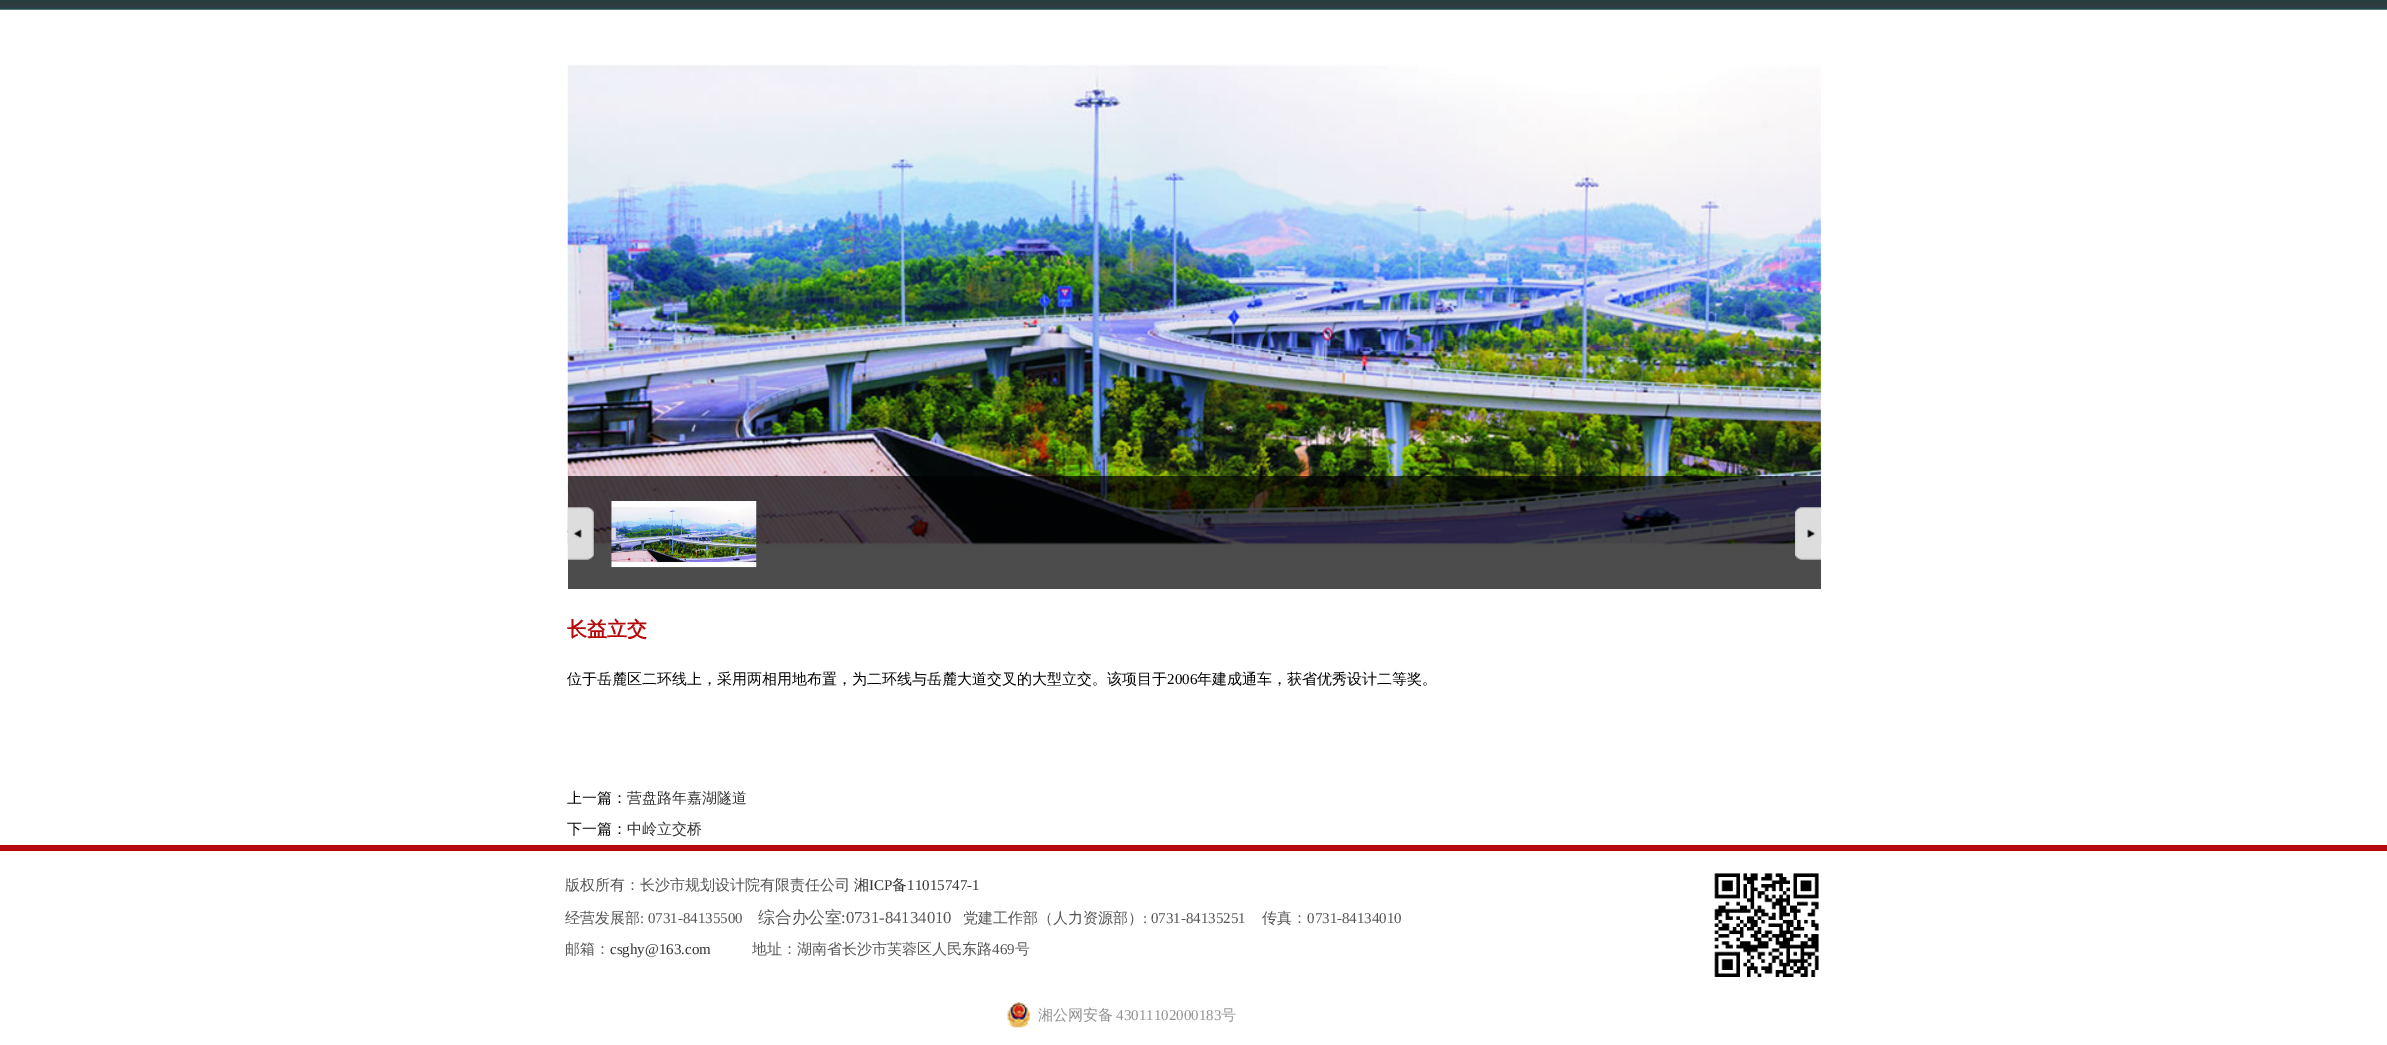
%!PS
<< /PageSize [2387 1045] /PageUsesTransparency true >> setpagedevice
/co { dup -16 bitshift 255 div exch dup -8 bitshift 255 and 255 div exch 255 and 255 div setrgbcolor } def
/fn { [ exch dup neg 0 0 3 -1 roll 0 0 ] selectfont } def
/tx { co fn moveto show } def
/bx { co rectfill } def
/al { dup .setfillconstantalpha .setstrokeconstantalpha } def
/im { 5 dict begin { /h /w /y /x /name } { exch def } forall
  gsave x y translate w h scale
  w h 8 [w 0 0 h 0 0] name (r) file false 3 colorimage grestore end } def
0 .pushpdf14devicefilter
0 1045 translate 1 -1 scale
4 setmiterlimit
0 0 2387 1045 16#FFFFFF bx
(media/1.raw) 0 0 2387 10 im
(media/2.raw) 567 64 1255 488 im
0.7 al
568 476 1253 113 16#000000 bx
1 al
(media/3.raw) 567 507 27 53 im
(media/4.raw) 611 501 146 67 im
(media/5.raw) 1795 507 26 53 im
0 845 2387 6 16#B60A0A bx
(media/6.raw) 1714 873 105 104 im
(media/7.raw) 1007 1002 24 26 im
(长益立交) 567 636 /WenQuanYiZenHei-Bold 20 16#B60A0A tx
(位于岳麓区二环线上，采用两相用地布置，为二环线与岳麓大道交叉的大型立交。该项目于) 567 684 /WenQuanYiZenHei-Medium 15 16#000000 tx
(2006) 1167 684 /LiberationSerif-Regular 15 16#000000 tx
(年建成通车，获省优秀设计二等奖。) 1197 684 /WenQuanYiZenHei-Medium 15 16#000000 tx
(上一篇：) 567 803 /WenQuanYiZenHei-Medium 15 16#000000 tx
(营盘路年嘉湖隧道) 627 803 /WenQuanYiZenHei-Medium 15 16#333333 tx
(下一篇：) 567 834 /WenQuanYiZenHei-Medium 15 16#000000 tx
(中岭立交桥) 627 834 /WenQuanYiZenHei-Medium 15 16#333333 tx
(版权所有：长沙市规划设计院有限责任公司) 565 890 /WenQuanYiZenHei-Medium 15 16#545454 tx
(湘) 854 890 /WenQuanYiZenHei-Medium 15 16#333333 tx
(ICP) 869 890 /LiberationSerif-Regular 15 16#333333 tx
(备) 892 890 /WenQuanYiZenHei-Medium 15 16#333333 tx
(11015747-1) 907 890 /LiberationSerif-Regular 15 16#333333 tx
(经营发展部) 565 923 /WenQuanYiZenHei-Medium 15 16#545454 tx
(: 0731-84135500) 640 923 /LiberationSerif-Regular 15 16#545454 tx
(综合办公室) 758 923 /WenQuanYiZenHei-Medium 16.75 16#545454 tx
(:0731-84134010) 841 923 /LiberationSerif-Regular 16.75 16#545454 tx
(党建工作部（人力资源部）) 963 923 /WenQuanYiZenHei-Medium 15 16#545454 tx
(: 0731-84135251) 1143 923 /LiberationSerif-Regular 15 16#545454 tx
(传真：) 1262 923 /WenQuanYiZenHei-Medium 15 16#545454 tx
(0731-84134010) 1307 923 /LiberationSerif-Regular 15 16#545454 tx
(邮箱：) 565 954 /WenQuanYiZenHei-Medium 15 16#545454 tx
(csghy@163.com) 610 954 /LiberationSerif-Regular 15 16#333333 tx
(地址：湖南省长沙市芙蓉区人民东路) 752 954 /WenQuanYiZenHei-Medium 15 16#545454 tx
(469) 992 954 /LiberationSerif-Regular 15 16#545454 tx
(号) 1015 954 /WenQuanYiZenHei-Medium 15 16#545454 tx
(湘公网安备) 1038 1020 /WenQuanYiZenHei-Medium 15 16#939393 tx
(43011102000183) 1116 1020 /LiberationSerif-Regular 15 16#939393 tx
(号) 1221 1020 /WenQuanYiZenHei-Medium 15 16#939393 tx
.poppdf14devicefilter showpage
